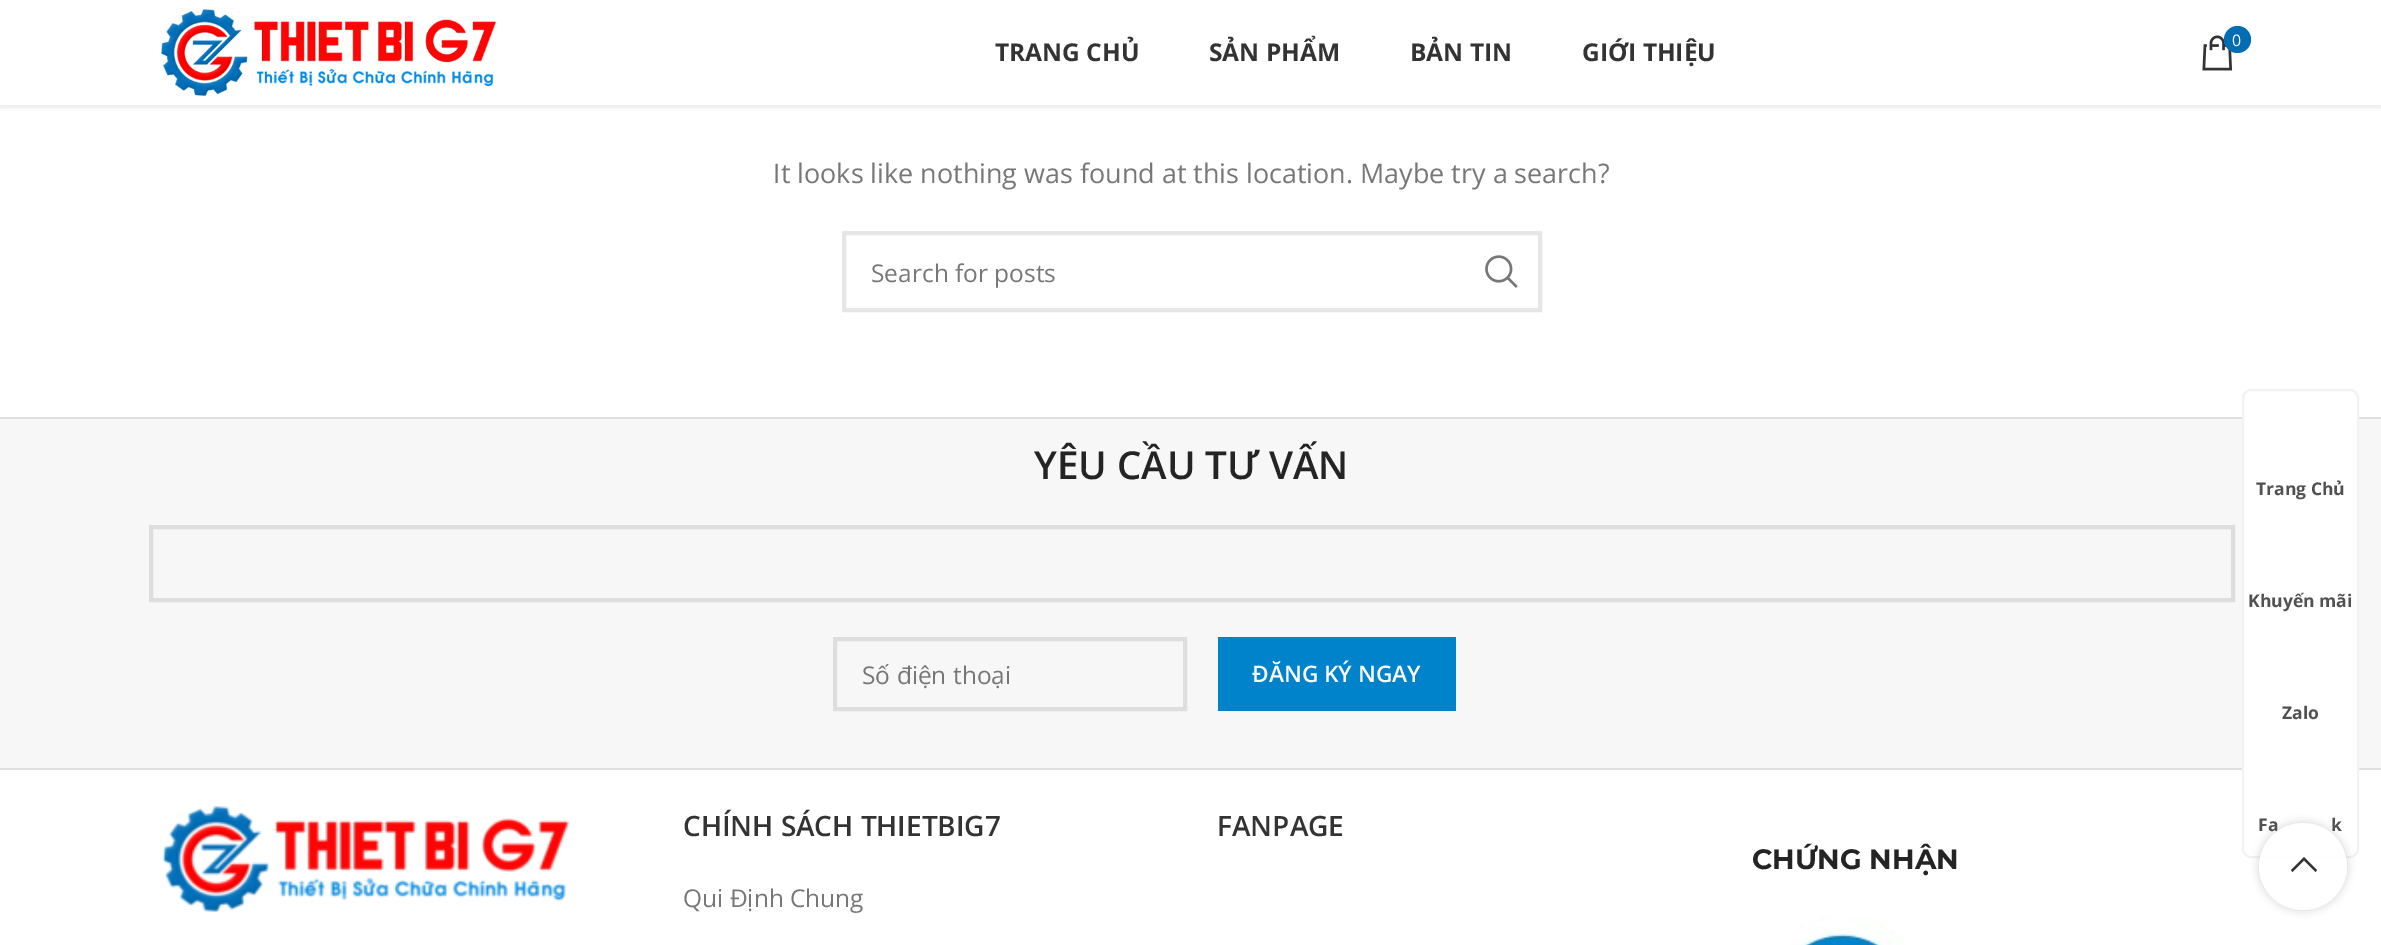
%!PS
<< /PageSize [2381 945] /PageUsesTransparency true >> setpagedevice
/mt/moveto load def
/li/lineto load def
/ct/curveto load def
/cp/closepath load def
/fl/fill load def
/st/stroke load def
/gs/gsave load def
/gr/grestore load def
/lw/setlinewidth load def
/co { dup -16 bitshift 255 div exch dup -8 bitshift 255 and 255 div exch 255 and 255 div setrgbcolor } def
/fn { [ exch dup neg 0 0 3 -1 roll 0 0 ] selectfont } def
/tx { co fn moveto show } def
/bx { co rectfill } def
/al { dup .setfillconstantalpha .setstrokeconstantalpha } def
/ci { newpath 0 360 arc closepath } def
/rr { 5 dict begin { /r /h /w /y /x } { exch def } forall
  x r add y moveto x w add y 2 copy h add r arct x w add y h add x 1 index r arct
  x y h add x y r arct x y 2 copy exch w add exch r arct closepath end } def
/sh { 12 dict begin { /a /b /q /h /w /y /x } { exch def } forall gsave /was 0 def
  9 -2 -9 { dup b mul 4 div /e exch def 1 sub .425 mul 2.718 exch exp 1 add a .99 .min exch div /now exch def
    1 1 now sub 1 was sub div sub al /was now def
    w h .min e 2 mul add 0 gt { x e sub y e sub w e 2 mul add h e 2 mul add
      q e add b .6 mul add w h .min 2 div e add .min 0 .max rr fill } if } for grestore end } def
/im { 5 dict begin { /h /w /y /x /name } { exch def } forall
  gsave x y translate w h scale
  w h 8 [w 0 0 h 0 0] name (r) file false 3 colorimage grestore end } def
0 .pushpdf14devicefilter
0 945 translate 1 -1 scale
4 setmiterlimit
0 0 2381 945 16#FFFFFF bx
16#000000 co
0 2 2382 105 0 2.5 .1 sh
0 0 2381 105 16#FFFFFF bx
(media/1.raw) 161 9 335 87 im
(media/2.raw) 2202 35 31 36 im
16#026DB5 co
2237.5 39.5 13.5 ci fl
16#E6E6E6 co
4 lw
844 233 696 77 rectstroke
(media/3.raw) 1485 255 33 33 im
0 419 2381 349 16#F7F7F7 bx
0 417 2381 2 16#DFDFDF bx
0 768 2381 2 16#DFDFDF bx
16#DDDDDD co
151 527 2082 73 rectstroke
16#DEDEDE co
835 639 350 70 rectstroke
1218 637 238 74 16#0083CB bx
(media/4.raw) 162 806 408 106 im
(media/5.raw) 1790 917 116 28 im
16#FFFFFF co
2243 390 115 467 8 rr gs fl gr
16#F2F2F2 co
2 lw
st
gs
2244 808 mt 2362 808 li 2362 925 li 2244 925 li cp 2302.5 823 mt 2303.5 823 li 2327.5 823 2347 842.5 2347 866.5 ct 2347 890.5 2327.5 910 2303.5 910 ct 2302.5 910 li 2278.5 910 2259 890.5 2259 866.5 ct 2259 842.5 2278.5 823 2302.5 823 ct cp eoclip newpath
16#000000 co
2259 823 88 87 43.5 4.5 .17 sh
gr
(TRANG CHỦ) 995 61 /OpenSans-Bold 24.5 16#333333 tx
(SẢN PHẨM) 1209 61 /OpenSans-Bold 24.5 16#333333 tx
(BẢN TIN) 1410 61 /OpenSans-Bold 24.5 16#333333 tx
(GIỚI THIỆU) 1582 61 /OpenSans-Bold 24.5 16#333333 tx
(0) 2232 46 /OpenSans-Regular 16 16#FFFFFF tx
(It looks like nothing was found at this location. Maybe try a search?) 773 183 /OpenSans-Regular 26.95 16#777777 tx
(Search for posts) 871 282 /OpenSans-Regular 24.5 16#777777 tx
(YÊU CẦU TƯ VẤN) 1034 479 /OpenSans-SemiBold 38.5 16#242424 tx
(Số điện thoại) 862 684 /OpenSans-Regular 24.5 16#777777 tx
(ĐĂNG KÝ NGAY) 1252 682 /OpenSans-SemiBold 22.75 16#FFFFFF tx
(CHÍNH SÁCH THIETBIG7) 683 836 /OpenSans-SemiBold 28 16#333333 tx
(Qui Định Chung) 683 907 /OpenSans-Regular 24.5 16#777777 tx
(FANPAGE) 1217 836 /OpenSans-SemiBold 28 16#333333 tx
(CHỨNG NHẬN) 1752 869 /Montserrat-Bold 28 16#242424 tx
(Trang Chủ) 2256 495 /OpenSans-Bold 17.5 16#515151 tx
(Khuyến mãi) 2248 607 /OpenSans-Bold 17.5 16#515151 tx
(Zalo) 2282 719 /OpenSans-Bold 17.5 16#515151 tx
(Fa) 2258 831 /OpenSans-Bold 17.5 16#515151 tx
(k) 2331 831 /OpenSans-Bold 17.5 16#515151 tx
0.9 al
16#FFFFFF co
2259 823 88 87 43.5 rr fl
1 al
16#333333 co
2315.5 872 mt 2317 870 li 2304 857 li 2291 870 li 2292.5 872 li 2304 860.5 li cp fl
.poppdf14devicefilter showpage
